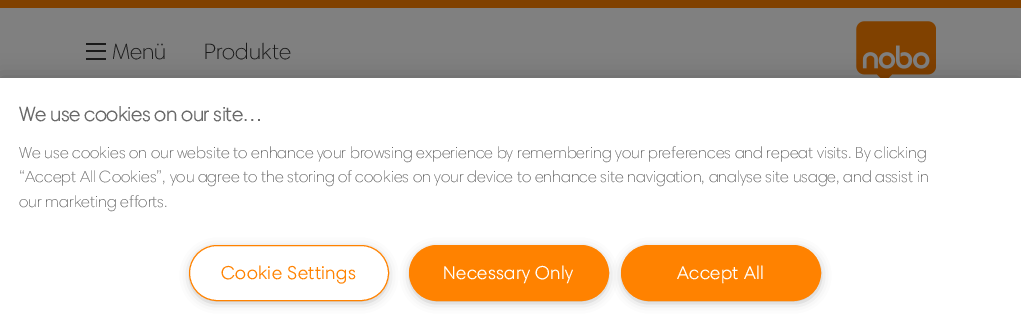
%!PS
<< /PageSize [1021 333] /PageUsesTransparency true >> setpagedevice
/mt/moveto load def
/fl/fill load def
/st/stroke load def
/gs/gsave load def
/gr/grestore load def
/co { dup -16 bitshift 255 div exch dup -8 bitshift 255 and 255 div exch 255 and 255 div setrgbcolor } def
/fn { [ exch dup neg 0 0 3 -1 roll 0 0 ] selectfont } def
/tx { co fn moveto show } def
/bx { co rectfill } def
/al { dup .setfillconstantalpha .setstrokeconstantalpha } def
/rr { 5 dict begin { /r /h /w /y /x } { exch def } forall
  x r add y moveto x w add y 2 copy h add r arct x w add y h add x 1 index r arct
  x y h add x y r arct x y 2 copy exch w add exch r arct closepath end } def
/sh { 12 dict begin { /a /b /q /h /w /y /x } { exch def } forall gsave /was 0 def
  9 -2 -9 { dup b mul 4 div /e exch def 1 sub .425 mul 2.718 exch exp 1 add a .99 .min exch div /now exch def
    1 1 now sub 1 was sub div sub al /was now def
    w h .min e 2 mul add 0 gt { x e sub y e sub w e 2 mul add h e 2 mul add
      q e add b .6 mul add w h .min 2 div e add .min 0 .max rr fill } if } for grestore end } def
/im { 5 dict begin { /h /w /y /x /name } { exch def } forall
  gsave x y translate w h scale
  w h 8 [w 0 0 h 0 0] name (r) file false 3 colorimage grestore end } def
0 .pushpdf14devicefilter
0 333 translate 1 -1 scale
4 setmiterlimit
0 0 1021 333 16#808080 bx
0 0 1021 8 16#804100 bx
86 50 20 2 16#1A1A1A bx
86 43 20 2 16#1A1A1A bx
86 58 20 2 16#1A1A1A bx
(media/1.raw) 856 21 80 57 im
16#000000 co
0 78 1021 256 0 11 .2 sh
0 78 1021 255 16#FFFFFF bx
16#999999 co
193 251 192 49 24.5 6 1 sh
16#FFFFFF co
189.5 245.5 199 55 27.5 rr gs fl gr
16#FF8200 co
st
16#999999 co
625 251 193 49 24.5 6 1 sh
16#FF8200 co
621.5 245.5 199 55 27.5 rr gs fl gr
st
16#999999 co
413 251 192 49 24.5 6 1 sh
16#FF8200 co
409.5 245.5 199 55 27.5 rr gs fl gr
st
(Menü) 112 59 /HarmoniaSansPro-Light 22.5 16#1A1A1A tx
(Produkte) 204 59 /HarmoniaSansPro-Light 22.5 16#1A1A1A tx
(We use cookies on our site…) 19 121 /HarmoniaSansPro-Bold 20 16#696969 tx
(We use cookies on our website to enhance your browsing experience by remembering your preferences and repeat visits. By clicking) 19 158 /HarmoniaSansPro-Light 16.25 16#696969 tx
(“Accept All Cookies”, you agree to the storing of cookies on your device to enhance site navigation, analyse site usage, and assist in) 19 182 /HarmoniaSansPro-Light 16.25 16#696969 tx
(our marketing efforts.) 19 207 /HarmoniaSansPro-Light 16.25 16#696969 tx
/HarmoniaSansPro-Bold 18 fn
16#FF8200 co
221 279 mt .9 0 (Cookie Settings) ashow
16#FFFFFF co
443 279 mt .9 0 (Necessary Only) ashow
677 279 mt .9 0 (Accept All) ashow
.poppdf14devicefilter showpage
